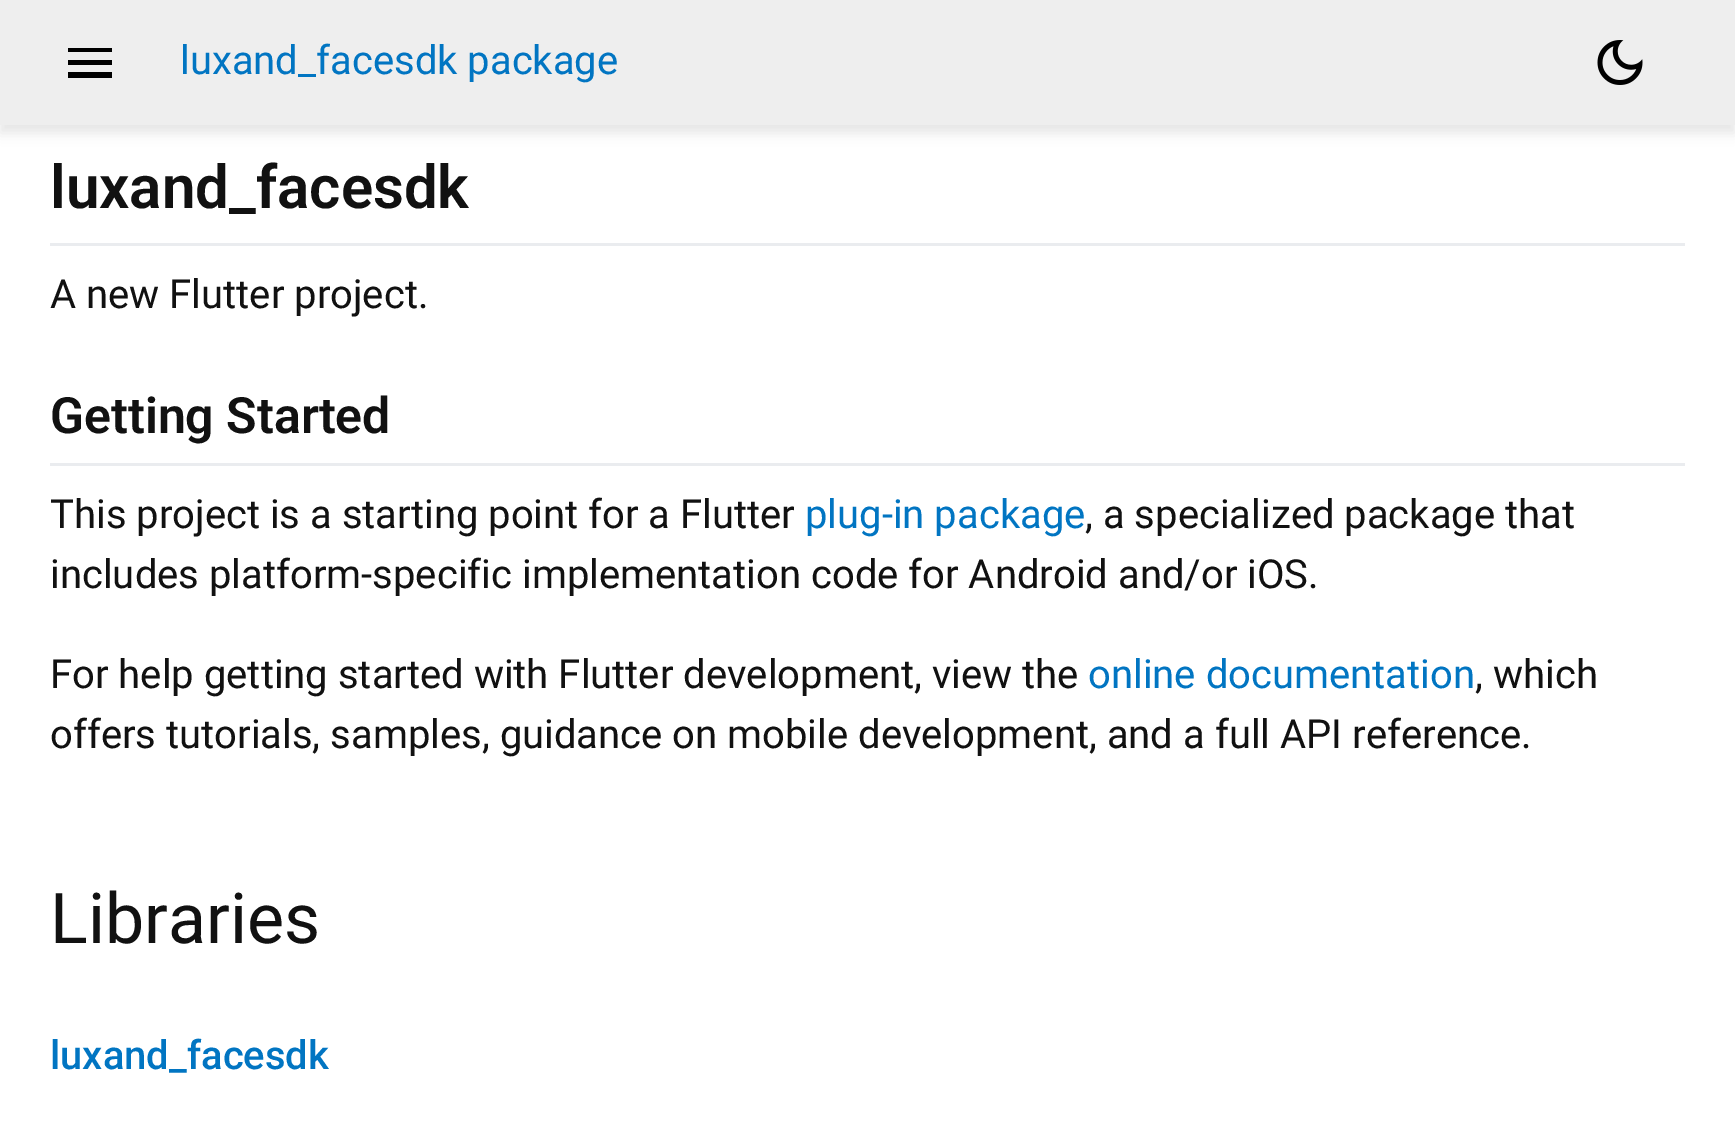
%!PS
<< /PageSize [1735 1136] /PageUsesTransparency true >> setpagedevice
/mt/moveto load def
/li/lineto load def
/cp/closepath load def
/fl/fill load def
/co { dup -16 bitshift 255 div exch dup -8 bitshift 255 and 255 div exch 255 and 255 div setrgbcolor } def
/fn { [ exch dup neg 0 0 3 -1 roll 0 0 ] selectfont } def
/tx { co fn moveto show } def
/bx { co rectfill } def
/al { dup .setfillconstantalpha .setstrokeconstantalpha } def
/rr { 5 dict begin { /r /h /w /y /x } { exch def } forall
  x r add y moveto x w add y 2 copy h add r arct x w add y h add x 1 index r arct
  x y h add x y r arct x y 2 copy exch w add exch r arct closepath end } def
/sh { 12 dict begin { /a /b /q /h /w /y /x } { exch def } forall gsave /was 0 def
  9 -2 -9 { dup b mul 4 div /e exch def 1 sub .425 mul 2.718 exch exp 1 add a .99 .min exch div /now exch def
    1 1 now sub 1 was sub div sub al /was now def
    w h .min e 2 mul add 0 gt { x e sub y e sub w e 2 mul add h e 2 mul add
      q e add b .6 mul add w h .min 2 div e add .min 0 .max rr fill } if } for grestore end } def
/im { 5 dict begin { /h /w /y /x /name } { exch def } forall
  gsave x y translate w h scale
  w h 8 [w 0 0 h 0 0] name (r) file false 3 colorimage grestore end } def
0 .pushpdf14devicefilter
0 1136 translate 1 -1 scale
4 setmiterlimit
0 0 1735 1136 16#FFFFFF bx
16#000000 co
0 8 1735 125 0 6 .1 sh
0 0 1735 125 16#EEEEEE bx
16#000000 co
68 78 mt 68 72 li 112 72 li 112 78 li cp 68 65 mt 68 60 li 112 60 li 112 65 li cp 68 52 mt 68 48 li 112 48 li 112 52 li cp fl
(media/1.raw) 1597 40 46 45 im
50 243 1635 3 16#EAECEF bx
50 463 1635 3 16#EAECEF bx
(luxand_facesdk package) 180 74 /Roboto-Regular 40 16#0175C2 tx
(luxand_facesdk) 50 208 /Roboto-SemiBold 60 16#111111 tx
(A new Flutter project.) 50 308 /Roboto-Regular 40 16#111111 tx
(Getting Started) 50 433 /Roboto-SemiBold 50 16#111111 tx
(This project is a starting point for a Flutter) 50 528 /Roboto-Regular 40 16#111111 tx
(plug-in package) 805 528 /Roboto-Regular 40 16#0175C2 tx
(, a specialized package that) 1085 528 /Roboto-Regular 40 16#111111 tx
(includes platform-specific implementation code for Android and/or iOS.) 50 588 /Roboto-Regular 40 16#111111 tx
(For help getting started with Flutter development, view the) 50 688 /Roboto-Regular 40 16#111111 tx
(online documentation) 1088 688 /Roboto-Regular 40 16#0175C2 tx
(, which) 1475 688 /Roboto-Regular 40 16#111111 tx
(offers tutorials, samples, guidance on mobile development, and a full API reference.) 50 748 /Roboto-Regular 40 16#111111 tx
(Libraries) 50 943 /Roboto-Regular 70 16#111111 tx
(luxand_facesdk) 50 1069 /Roboto-Medium 40 16#0175C2 tx
.poppdf14devicefilter showpage
